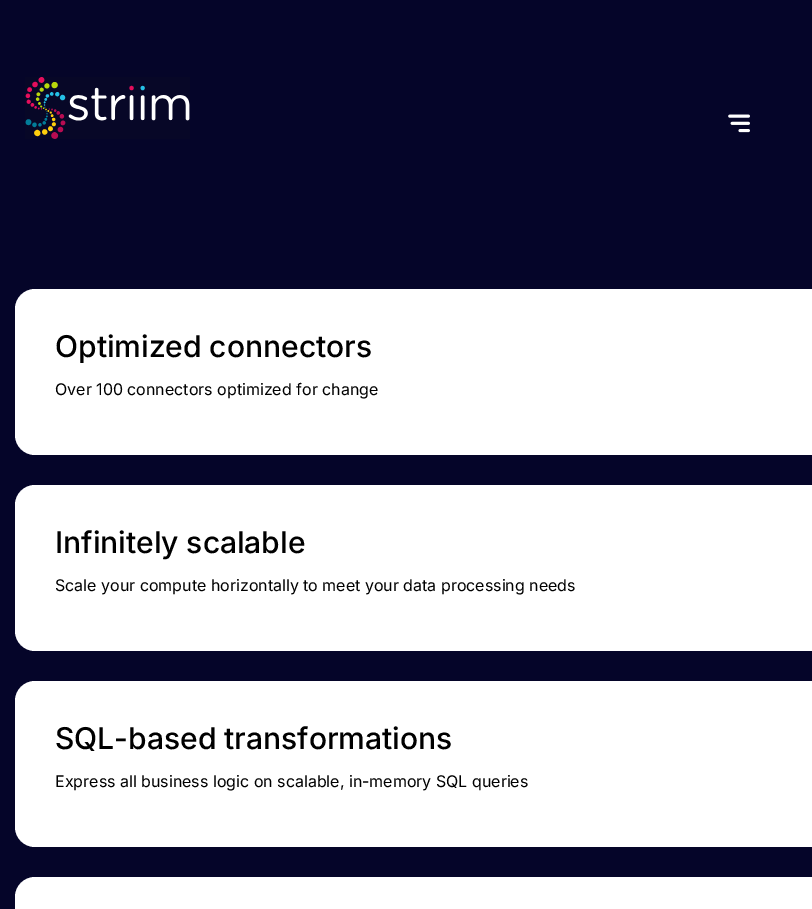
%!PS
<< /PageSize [812 909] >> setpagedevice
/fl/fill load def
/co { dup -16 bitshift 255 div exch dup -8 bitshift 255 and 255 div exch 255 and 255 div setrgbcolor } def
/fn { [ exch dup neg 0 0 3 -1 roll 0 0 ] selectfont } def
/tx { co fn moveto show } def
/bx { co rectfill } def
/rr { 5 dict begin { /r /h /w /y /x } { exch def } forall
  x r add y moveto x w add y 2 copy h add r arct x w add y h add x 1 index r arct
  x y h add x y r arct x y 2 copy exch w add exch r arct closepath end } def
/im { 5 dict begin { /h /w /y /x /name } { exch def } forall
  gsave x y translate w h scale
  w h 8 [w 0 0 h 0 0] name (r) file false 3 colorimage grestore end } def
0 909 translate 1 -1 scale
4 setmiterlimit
0 0 812 909 16#050529 bx
(media/1.raw) 25 77 165 62 im
(media/2.raw) 728 114 22 19 im
16#FFFFFF co
15 289 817 166 20 rr fl
15 485 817 166 20 rr fl
15 681 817 166 20 rr fl
15 877 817 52 20 rr fl
(Optimized connectors) 55 357 /Inter-Medium 30 16#000000 tx
(Over 100 connectors optimized for change) 55 395 /Inter-Regular 16 16#000000 tx
(Infinitely scalable) 55 553 /Inter-Medium 30 16#000000 tx
(Scale your compute horizontally to meet your data processing needs) 55 591 /Inter-Regular 16 16#000000 tx
(SQL-based transformations) 55 749 /Inter-Medium 30 16#000000 tx
(Express all business logic on scalable, in-memory SQL queries) 55 787 /Inter-Regular 16 16#000000 tx
showpage
